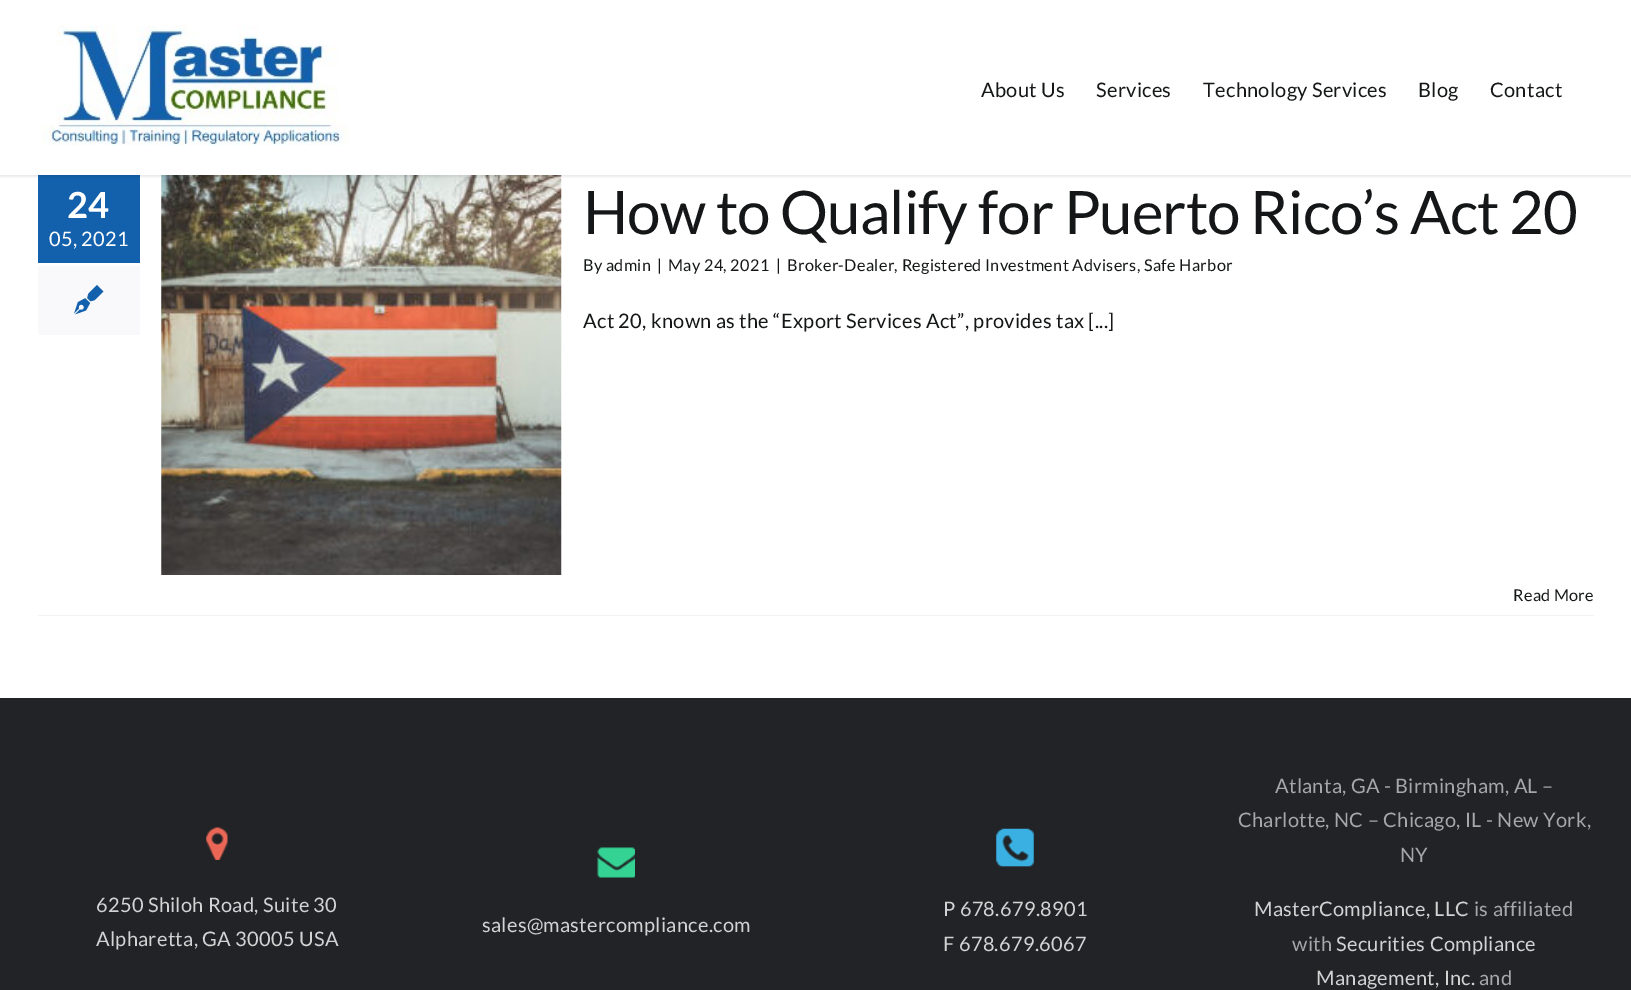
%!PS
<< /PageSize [1631 990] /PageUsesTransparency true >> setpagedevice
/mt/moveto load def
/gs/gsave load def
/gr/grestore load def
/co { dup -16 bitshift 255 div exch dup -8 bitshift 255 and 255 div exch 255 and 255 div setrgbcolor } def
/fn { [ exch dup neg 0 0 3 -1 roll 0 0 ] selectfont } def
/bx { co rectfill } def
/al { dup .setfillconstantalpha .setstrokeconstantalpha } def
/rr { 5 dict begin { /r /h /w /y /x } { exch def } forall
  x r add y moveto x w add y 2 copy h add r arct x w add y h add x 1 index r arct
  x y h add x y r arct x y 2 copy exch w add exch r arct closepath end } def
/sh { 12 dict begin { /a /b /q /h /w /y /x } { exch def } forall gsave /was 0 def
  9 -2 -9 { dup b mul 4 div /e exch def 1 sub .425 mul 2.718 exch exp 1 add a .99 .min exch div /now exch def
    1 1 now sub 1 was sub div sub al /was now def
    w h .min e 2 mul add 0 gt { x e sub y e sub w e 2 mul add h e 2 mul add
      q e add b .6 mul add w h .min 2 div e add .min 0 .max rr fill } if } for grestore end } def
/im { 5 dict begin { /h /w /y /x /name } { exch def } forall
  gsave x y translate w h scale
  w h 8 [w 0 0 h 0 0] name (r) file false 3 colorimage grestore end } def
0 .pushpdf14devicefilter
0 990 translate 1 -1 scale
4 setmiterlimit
0 0 1631 990 16#FFFFFF bx
38 175 102 88 16#1361AC bx
(media/3.raw) 161 175 401 400 im
gs
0 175 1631 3 rectclip
16#000000 co
0 1 1631 175 0 2 .12 sh
gr
(media/1.raw) 41 25 308 121 im
38 266 102 69 16#F9F9FB bx
(media/2.raw) 74 285 30 30 im
38 615 1556 1 16#F2F3F5 bx
0 698 1631 292 16#212326 bx
(media/4.raw) 206 827 22 33 im
(media/5.raw) 597 847 38 31 im
(media/6.raw) 996 828 38 39 im
/Lato-Regular 20 fn
16#141617 co
981 97 mt .3 0 (About Us) ashow
1096 97 mt .3 0 (Services) ashow
1203 97 mt .3 0 (Technology Services) ashow
1418 97 mt .3 0 (Blog) ashow
1490 97 mt .3 0 (Contact) ashow
/Lato-Bold 36 fn
16#FFFFFF co
67 218 mt .3 0 (24) ashow
/Lato-Regular 20 fn
49 246 mt .3 0 (05, 2021) ashow
/Lato-Regular 60 fn
16#141617 co
583 234 mt -.9 0 (How to Qualify for Puerto Rico’s Act 20) ashow
/Lato-Regular 16.25 fn
583 271 mt .3 0 (By admin) ashow
657 271 mt .3 0 (|) ashow
668 271 mt .3 0 (May 24, 2021) ashow
776 271 mt .3 0 (|) ashow
787 271 mt .3 0 (Broker-Dealer, Registered Investment Advisers, Safe Harbor) ashow
/Lato-Regular 20 fn
583 328 mt .3 0 (Act 20, known as the “Export Services Act”, provides tax [...]) ashow
/Lato-Regular 16.25 fn
1513 601 mt .3 0 (Read More) ashow
/Lato-Regular 20 fn
16#D3D3D4 co
96 912 mt .3 0 (6250 Shiloh Road, Suite 30) ashow
96 946 mt .3 0 (Alpharetta, GA 30005 USA) ashow
482 932 mt .3 0 (sales@mastercompliance.com) ashow
943 916 mt .3 0 (P 678.679.8901) ashow
943 951 mt .3 0 (F 678.679.6067) ashow
16#A6A7A8 co
1275 793 mt .3 0 (Atlanta, GA - Birmingham, AL –) ashow
1238 827 mt .3 0 (Charlotte, NC – Chicago, IL - New York,) ashow
1400 862 mt .3 0 (NY) ashow
16#D3D3D4 co
1254 916 mt .3 0 (MasterCompliance, LLC) ashow
16#A6A7A8 co
1474 916 mt .3 0 (is affiliated) ashow
1292 951 mt .3 0 (with) ashow
16#D3D3D4 co
1336 951 mt .3 0 (Securities Compliance) ashow
1316 985 mt .3 0 (Management, Inc.) ashow
16#A6A7A8 co
1479 985 mt .3 0 (and) ashow
.poppdf14devicefilter showpage
